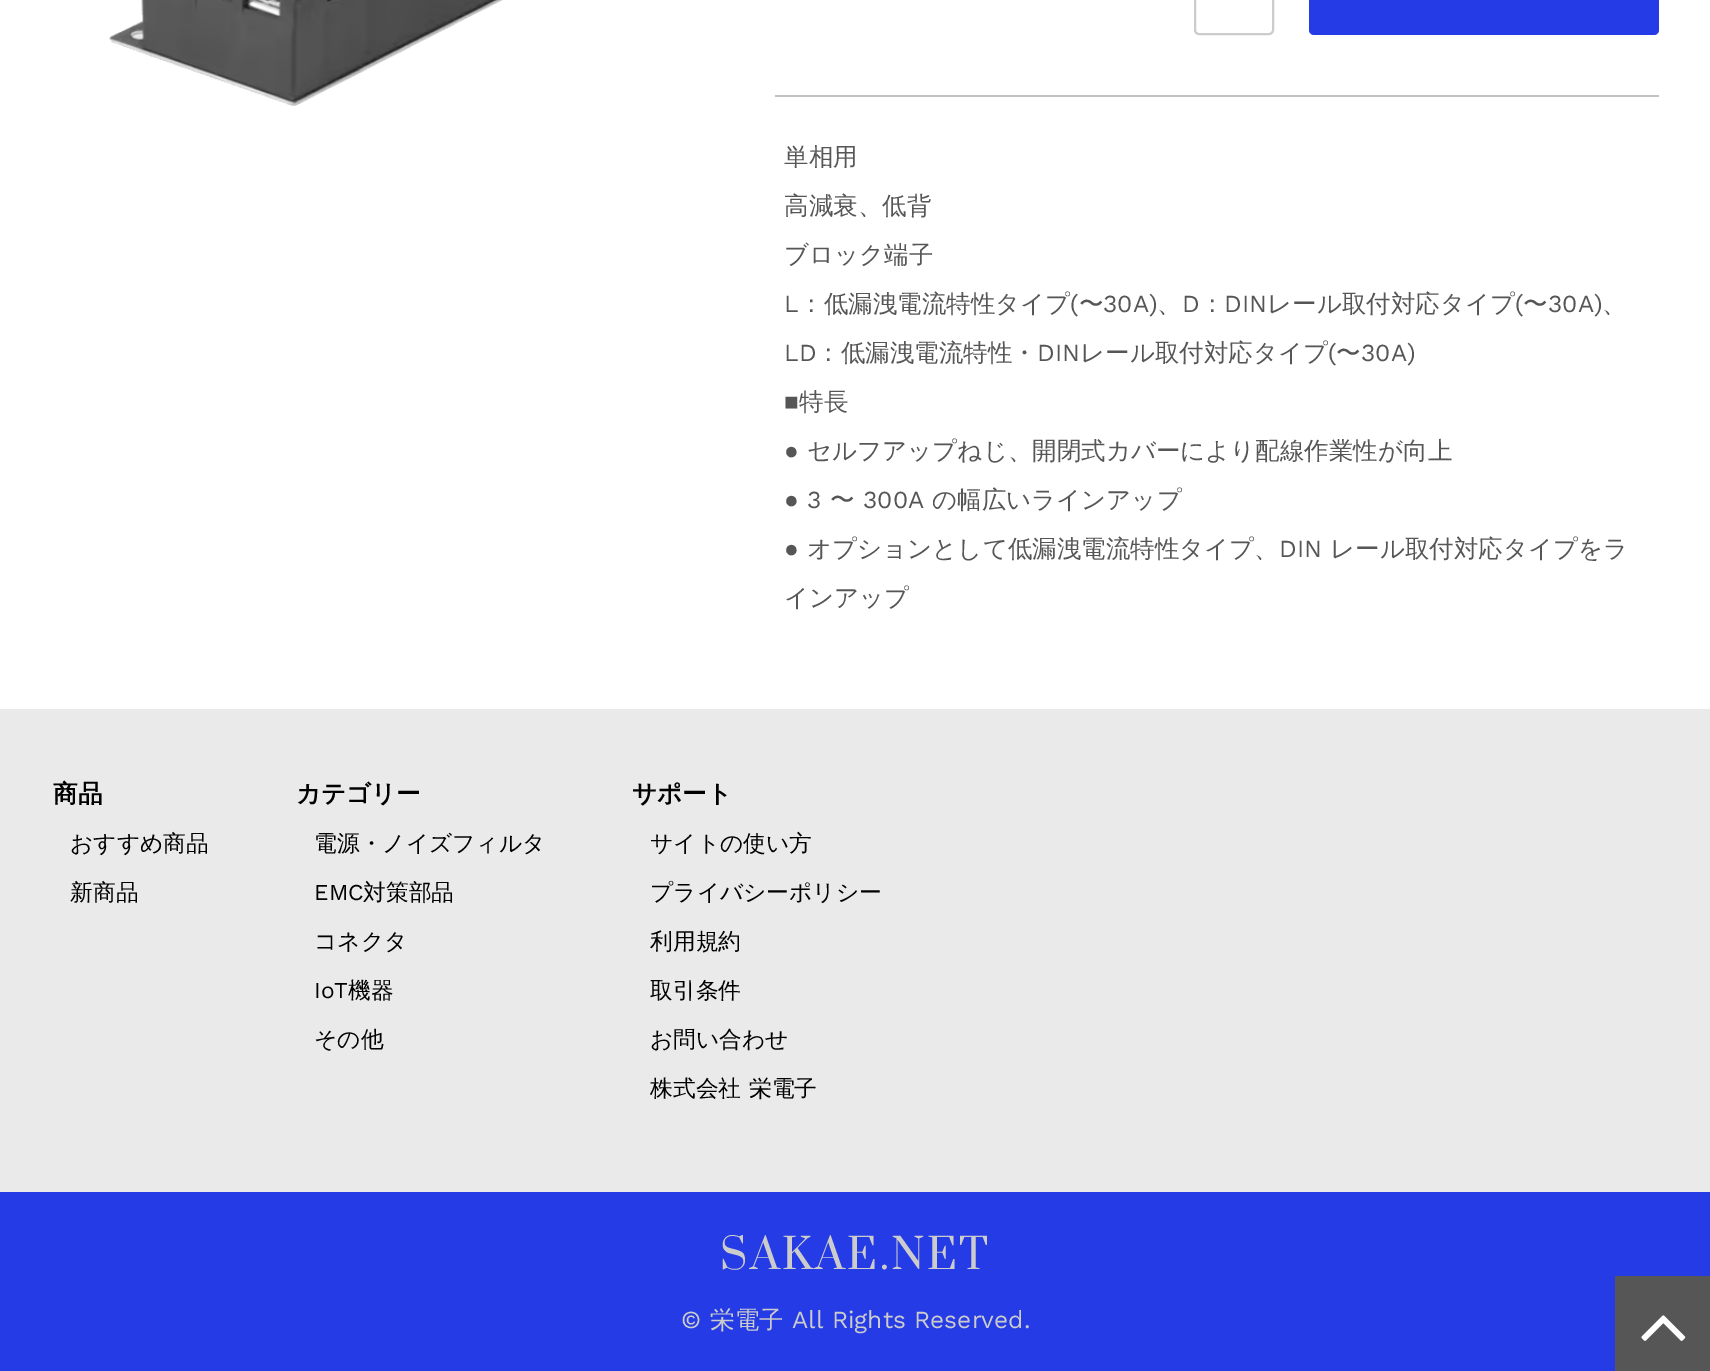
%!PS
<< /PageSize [1710 1371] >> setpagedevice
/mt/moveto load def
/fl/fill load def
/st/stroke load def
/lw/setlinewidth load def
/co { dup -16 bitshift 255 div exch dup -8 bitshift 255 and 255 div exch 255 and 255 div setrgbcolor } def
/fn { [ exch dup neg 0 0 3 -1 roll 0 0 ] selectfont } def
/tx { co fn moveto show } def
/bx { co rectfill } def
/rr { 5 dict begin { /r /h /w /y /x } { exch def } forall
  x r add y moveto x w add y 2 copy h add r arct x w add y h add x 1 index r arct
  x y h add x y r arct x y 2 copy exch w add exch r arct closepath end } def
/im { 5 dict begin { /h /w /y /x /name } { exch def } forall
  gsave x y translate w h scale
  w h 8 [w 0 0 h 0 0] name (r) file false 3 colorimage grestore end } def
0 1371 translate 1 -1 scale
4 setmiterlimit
0 0 1710 1371 16#FFFFFF bx
(media/1.raw) 109 0 394 106 im
775 95 884 2 16#C1C1C4 bx
16#CCCCCC co
2 lw
1195 -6 78 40 4 rr st
16#243BE5 co
1309 -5 350 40 5 rr fl
0 709 1710 483 16#EAEAEB bx
0 1192 1710 179 16#243BE5 bx
1615 1276 95 95 16#565656 bx
(media/2.raw) 1641 1315 45 26 im
(単相用) 784 165 /WenQuanYiZenHei-Medium 24.5 16#565656 tx
(高減衰、低背) 784 214 /WenQuanYiZenHei-Medium 24.5 16#565656 tx
(ブロック端子) 784 263 /WenQuanYiZenHei-Medium 24.5 16#565656 tx
(L) 784 312 /WorkSans-Regular 24.5 16#565656 tx
(：低漏洩電流特性タイプ) 799 312 /WenQuanYiZenHei-Medium 24.5 16#565656 tx
(\() 1070 312 /WorkSans-Regular 24.5 16#565656 tx
(〜) 1079 312 /WenQuanYiZenHei-Medium 24.5 16#565656 tx
(30A\)) 1103 312 /WorkSans-Regular 24.5 16#565656 tx
(D) 1182 312 /WorkSans-Regular 24.5 16#565656 tx
(：) 1200 312 /WenQuanYiZenHei-Medium 24.5 16#565656 tx
(DIN) 1224 312 /WorkSans-Regular 24.5 16#565656 tx
(レール取付対応タイプ) 1267 312 /WenQuanYiZenHei-Medium 24.5 16#565656 tx
(\() 1515 312 /WorkSans-Regular 24.5 16#565656 tx
(〜) 1523 312 /WenQuanYiZenHei-Medium 24.5 16#565656 tx
(30A\)) 1548 312 /WorkSans-Regular 24.5 16#565656 tx
(、) 1157 312 /WenQuanYiZenHei-Medium 24.5 16#565656 tx
(、) 1602 312 /WenQuanYiZenHei-Medium 24.5 16#565656 tx
(LD) 784 361 /WorkSans-Regular 24.5 16#565656 tx
(：低漏洩電流特性・) 816 361 /WenQuanYiZenHei-Medium 24.5 16#565656 tx
(DIN) 1037 361 /WorkSans-Regular 24.5 16#565656 tx
(レール取付対応タイプ) 1080 361 /WenQuanYiZenHei-Medium 24.5 16#565656 tx
(\() 1328 361 /WorkSans-Regular 24.5 16#565656 tx
(〜) 1336 361 /WenQuanYiZenHei-Medium 24.5 16#565656 tx
(30A\)) 1361 361 /WorkSans-Regular 24.5 16#565656 tx
(■) 784 410 /LiberationSans-Regular 24.5 16#565656 tx
(特長) 799 410 /WenQuanYiZenHei-Medium 24.5 16#565656 tx
(●) 784 459 /LiberationSans-Regular 24.5 16#565656 tx
(セルフアップねじ、開閉式カバーにより配線作業性が向上) 807 459 /WenQuanYiZenHei-Medium 24.5 16#565656 tx
(●) 784 508 /LiberationSans-Regular 24.5 16#565656 tx
(3) 807 508 /WorkSans-Regular 24.5 16#565656 tx
(〜) 830 508 /WenQuanYiZenHei-Medium 24.5 16#565656 tx
(300A) 863 508 /WorkSans-Regular 24.5 16#565656 tx
(の幅広いラインアップ) 932 508 /WenQuanYiZenHei-Medium 24.5 16#565656 tx
(●) 784 557 /LiberationSans-Regular 24.5 16#565656 tx
(オプションとして低漏洩電流特性タイプ、) 807 557 /WenQuanYiZenHei-Medium 24.5 16#565656 tx
(DIN) 1279 557 /WorkSans-Regular 24.5 16#565656 tx
(レール取付対応タイプをラ) 1330 557 /WenQuanYiZenHei-Medium 24.5 16#565656 tx
(インアップ) 784 606 /WenQuanYiZenHei-Medium 24.5 16#565656 tx
(商品) 53 802 /WenQuanYiZenHei-Bold 24.5 16#000000 tx
(おすすめ商品) 70 851 /WenQuanYiZenHei-Medium 22.75 16#000000 tx
(新商品) 70 900 /WenQuanYiZenHei-Medium 22.75 16#000000 tx
(カテゴリー) 296 802 /WenQuanYiZenHei-Bold 24.5 16#000000 tx
(電源・ノイズフィルタ) 314 851 /WenQuanYiZenHei-Medium 22.75 16#000000 tx
(EMC) 314 900 /WorkSans-Regular 22.75 16#000000 tx
(対策部品) 363 900 /WenQuanYiZenHei-Medium 22.75 16#000000 tx
(コネクタ) 314 949 /WenQuanYiZenHei-Medium 22.75 16#000000 tx
(IoT) 314 998 /WorkSans-Regular 22.75 16#000000 tx
(機器) 348 998 /WenQuanYiZenHei-Medium 22.75 16#000000 tx
(その他) 314 1047 /WenQuanYiZenHei-Medium 22.75 16#000000 tx
(サポート) 632 802 /WenQuanYiZenHei-Bold 24.5 16#000000 tx
(サイトの使い方) 650 851 /WenQuanYiZenHei-Medium 22.75 16#000000 tx
(プライバシーポリシー) 650 900 /WenQuanYiZenHei-Medium 22.75 16#000000 tx
(利用規約) 650 949 /WenQuanYiZenHei-Medium 22.75 16#000000 tx
(取引条件) 650 998 /WenQuanYiZenHei-Medium 22.75 16#000000 tx
(お問い合わせ) 650 1047 /WenQuanYiZenHei-Medium 22.75 16#000000 tx
650 1096 mt 1 0 32 (株式会社 栄電子) widthshow
/Suranna-Regular 52.5 fn
16#CCCCCC co
720 1269 mt 2.6 0 (SAKAE.NET) ashow
(©) 681 1328 /WorkSans-Regular 24.5 16#CCCCCC tx
(栄電子) 710 1328 /WenQuanYiZenHei-Medium 24.5 16#CCCCCC tx
(All Rights Reserved.) 792 1328 /WorkSans-Regular 24.5 16#CCCCCC tx
showpage
